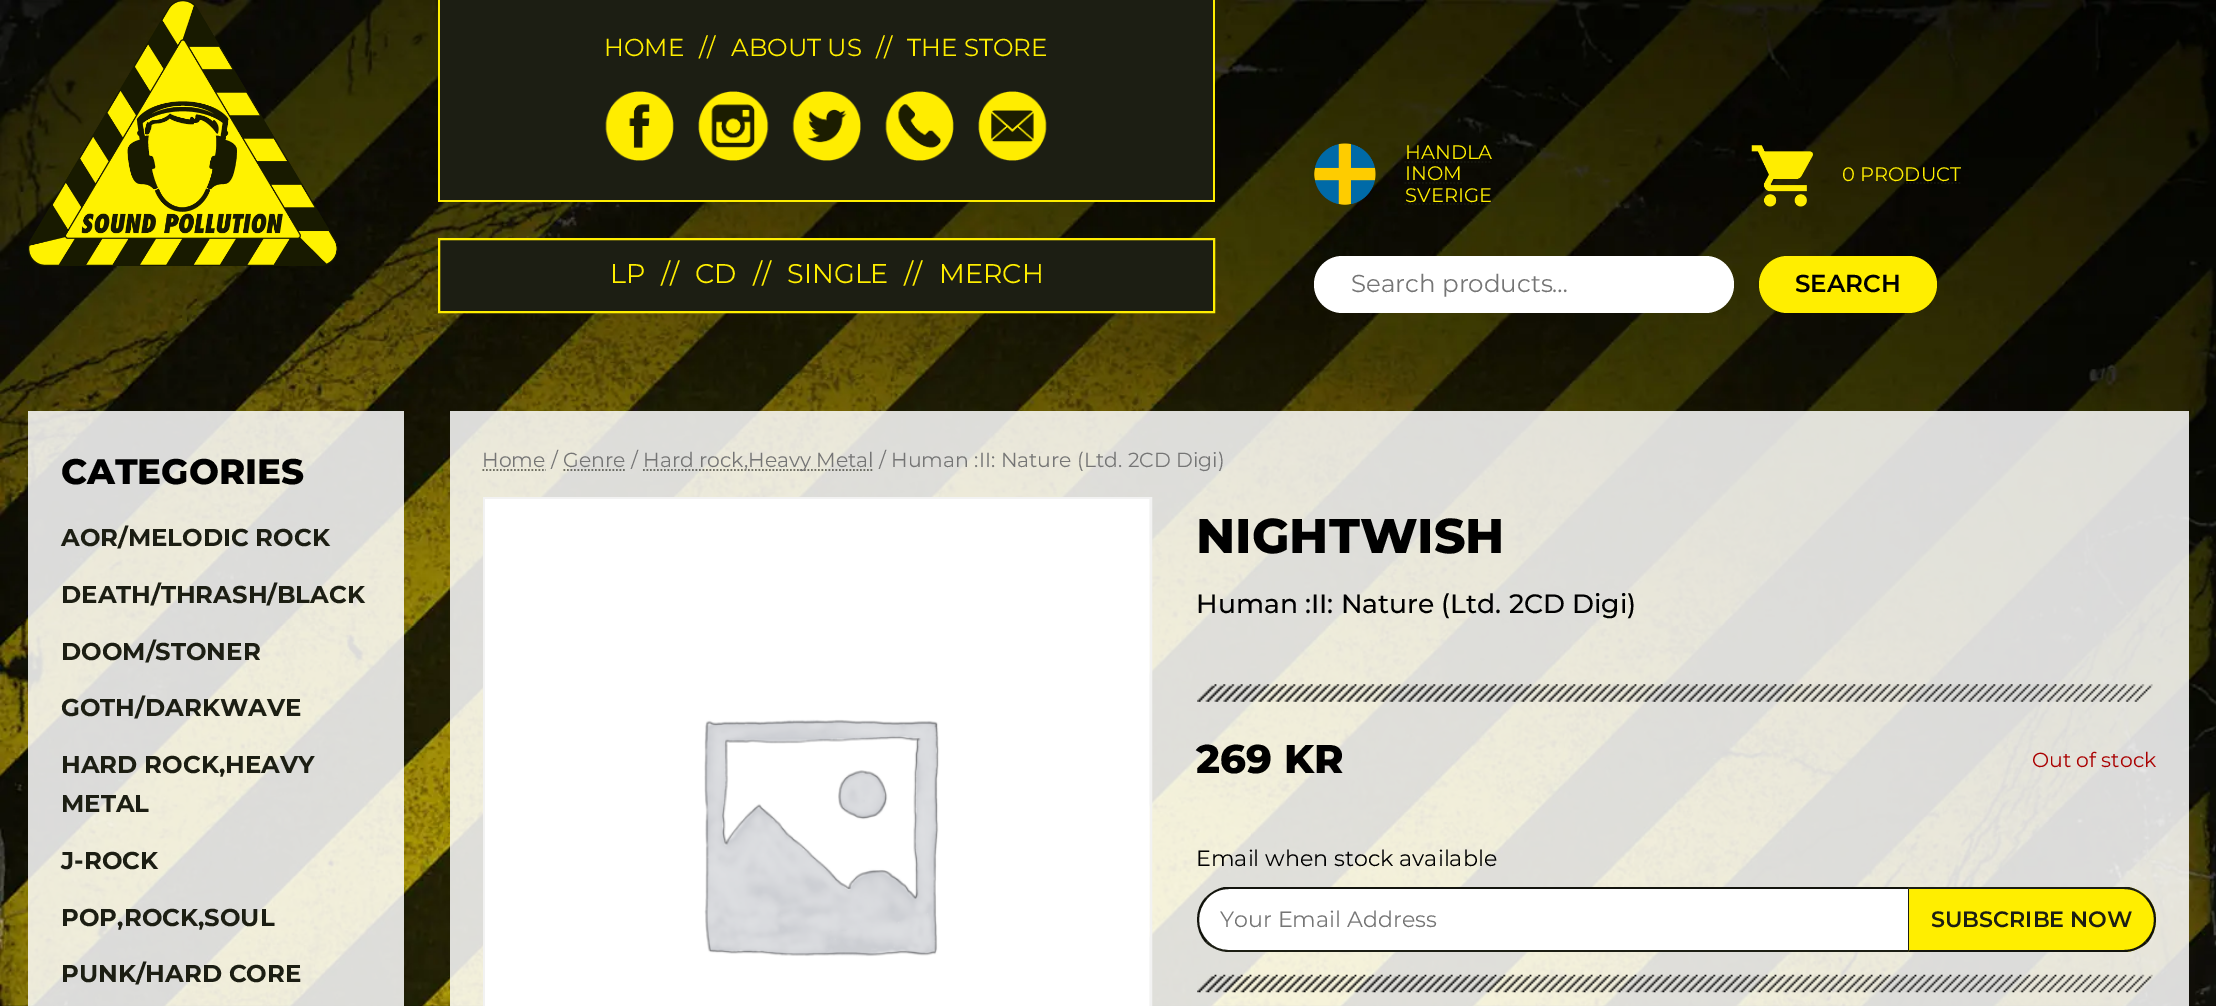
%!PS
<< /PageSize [2216 1006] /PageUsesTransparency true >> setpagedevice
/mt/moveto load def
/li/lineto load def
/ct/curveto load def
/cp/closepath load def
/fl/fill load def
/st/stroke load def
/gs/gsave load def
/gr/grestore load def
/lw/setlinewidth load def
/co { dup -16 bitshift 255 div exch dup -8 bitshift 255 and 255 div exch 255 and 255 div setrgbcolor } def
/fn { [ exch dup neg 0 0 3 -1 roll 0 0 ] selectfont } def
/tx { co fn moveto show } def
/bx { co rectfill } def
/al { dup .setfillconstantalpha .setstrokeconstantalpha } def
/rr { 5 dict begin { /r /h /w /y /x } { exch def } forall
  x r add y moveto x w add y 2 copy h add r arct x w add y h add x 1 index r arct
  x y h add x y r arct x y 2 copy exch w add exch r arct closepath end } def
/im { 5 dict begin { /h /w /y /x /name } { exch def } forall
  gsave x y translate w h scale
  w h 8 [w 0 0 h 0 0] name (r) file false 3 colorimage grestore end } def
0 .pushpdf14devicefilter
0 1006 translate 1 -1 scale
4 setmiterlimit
0 0 2216 1006 16#FFFFFF bx
(media/1.raw) 0 0 2216 1006 im
(media/2.raw) 28 0 310 266 im
440 0 773 200 16#1C1E13 bx
1213 0 2 201 16#FFEE00 bx
438 200 777 2 16#FFEE00 bx
438 0 2 201 16#FFEE00 bx
(media/3.raw) 605 91 69 70 im
(media/4.raw) 698 91 71 70 im
(media/5.raw) 792 91 69 70 im
(media/6.raw) 885 91 69 70 im
(media/7.raw) 978 91 69 70 im
16#1C1E13 co
439 239 mt 1214 239 li 1214 312 li 439 312 li cp gs fl gr
16#FFEE00 co
2 lw
st
(media/8.raw) 1314 143 62 62 im
0.6 al
16#1C1E13 co
1.8 lw
[1.75 1.75] 0 setdash
1404.5 162 mt 1492 162 li st
1404.5 183 mt 1461.5 183 li st
1404.5 204 mt 1491.5 204 li st
1 al
(media/9.raw) 1751 145 62 62 im
0.6 al
1842 183 mt 1860.5 183 li st
1860.5 183 mt 1962 183 li st
1 al
16#FFFFFF co
1314 256 420 57 28.5 rr fl
16#FFEE00 co
1759 256 178 57 28.5 rr fl
0.85 al
28 411 376 595 16#FFFFFF bx
450 411 1739 595 16#FFFFFF bx
0.6 al
16#1C1E13 co
482.5 470 mt 546 470 li st
643 470 mt 873.5 470 li st
1 al
16#F2F2F2 co
2 lw
[] 0 setdash
484 498 667 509 rectstroke
(media/10.raw) 485 499 665 507 im
(media/11.raw) 1197 684 956 18 im
16#FFFFFF co
1229.5 887 mt 1908 887 li 1908 952 li 1229.5 952 li 1211.5 952 1197 937.5 1197 919.5 ct 1197 901.5 1211.5 887 1229.5 887 ct cp fl
16#13140D co
1229 889 mt 1221 889 1213 892 1208 898 ct 1206 897 li 1211 892 1218 888 1225 887 ct 1908 887 li 1908 889 li cp fl
16#1C1E13 co
1908 952 mt 1908 950 li 1229 950 li 1220 950 1213 947 1208 941 ct 1206 943 li 1212 948 1220 952 1229 952 ct cp fl
16#13140D co
1206 943 mt 1194 930 1194 909 1206 897 ct 1208 898 li 1196 910 1196 930 1208 941 ct cp fl
16#FFEE00 co
1908 887 mt 2123.5 887 li 2141.5 887 2156 901.5 2156 919.5 ct 2156 937.5 2141.5 952 2123.5 952 ct 1908 952 li cp fl
16#1C1E13 co
1908 888 mt 1908 887 li 2128 887 li 2135 888 2142 892 2147 897 ct 2145 898 li 2140 892 2132 889 2124 889 ct 1909 889 li cp fl
16#13140D co
2147 897 mt 2159 909 2159 930 2147 943 ct 2145 941 li 2157 930 2157 910 2145 898 ct cp fl
1908 952 mt 2124 952 li 2133 952 2141 948 2147 943 ct 2145 941 li 2140 947 2132 950 2124 950 ct 1910 950 li cp fl
16#1C1E13 co
1909 889 mt 1909 950 li 1910 950 li 1908 952 li 1908 888 li cp fl
(media/12.raw) 1197 974 956 19 im
(HOME) 604 56 /Montserrat-Regular 24.5 16#FFEE00 tx
(//) 699 56 /Montserrat-Regular 24.5 16#FFEE00 tx
(ABOUT US) 731 56 /Montserrat-Regular 24.5 16#FFEE00 tx
(//) 876 56 /Montserrat-Regular 24.5 16#FFEE00 tx
(THE STORE) 907 56 /Montserrat-Regular 24.5 16#FFEE00 tx
(LP) 610 283 /Montserrat-Regular 27 16#FFEE00 tx
(//) 661 283 /Montserrat-Regular 27 16#FFEE00 tx
(CD) 695 283 /Montserrat-Regular 27 16#FFEE00 tx
(//) 753 283 /Montserrat-Regular 27 16#FFEE00 tx
(SINGLE) 787 283 /Montserrat-Regular 27 16#FFEE00 tx
(//) 904 283 /Montserrat-Regular 27 16#FFEE00 tx
(MERCH) 939 283 /Montserrat-Regular 27 16#FFEE00 tx
(HANDLA) 1405 159 /Montserrat-Regular 19.5 16#FFEE00 tx
(INOM) 1405 180 /Montserrat-Regular 19.5 16#FFEE00 tx
(SVERIGE) 1405 202 /Montserrat-Regular 19.5 16#FFEE00 tx
(0 PRODUCT) 1842 181 /Montserrat-Regular 19.5 16#FFEE00 tx
(Search products…) 1351 292 /Montserrat-Regular 24.5 16#757575 tx
(SEARCH) 1795 292 /Montserrat-SemiBold 24.5 16#000000 tx
(CATEGORIES) 61 484 /Montserrat-ExtraBold 35.5 16#000000 tx
(AOR/MELODIC ROCK) 61 546 /Montserrat-Bold 24.4 16#1C1E13 tx
(DEATH/THRASH/BLACK) 61 603 /Montserrat-Bold 24.4 16#1C1E13 tx
(DOOM/STONER) 61 660 /Montserrat-Bold 24.4 16#1C1E13 tx
(GOTH/DARKWAVE) 61 716 /Montserrat-Bold 24.4 16#1C1E13 tx
(HARD ROCK,HEAVY) 61 773 /Montserrat-Bold 24.4 16#1C1E13 tx
(METAL) 61 812 /Montserrat-Bold 24.4 16#1C1E13 tx
(J-ROCK) 61 869 /Montserrat-Bold 24.4 16#1C1E13 tx
(POP,ROCK,SOUL) 61 926 /Montserrat-Bold 24.4 16#1C1E13 tx
(PUNK/HARD CORE) 61 982 /Montserrat-Bold 24.4 16#1C1E13 tx
(Home / Genre /) 482 467 /Montserrat-Regular 20.4 16#757575 tx
(Hard rock,Heavy Metal) 643 467 /Montserrat-Regular 20.4 16#757575 tx
(/ Human :II: Nature \(Ltd. 2CD Digi\)) 879 467 /Montserrat-Regular 20.4 16#757575 tx
0.6 al
16#1C1E13 co
1.8 lw
[1.75 1.75] 0 setdash
563.5 470 mt 625.5 470 li st
1 al
(NIGHTWISH) 1196 553 /Montserrat-ExtraBold 48.75 16#000000 tx
(Human :II: Nature \(Ltd. 2CD Digi\)) 1196 613 /Montserrat-Medium 26.6 16#000000 tx
(269 KR) 1196 773 /Montserrat-ExtraBold 40 16#000000 tx
(Out of stock) 2032 767 /Montserrat-Regular 20.4 16#AA0000 tx
(Email when stock available) 1196 866 /Montserrat-Regular 22.2 16#000000 tx
(Your Email Address) 1220 927 /Montserrat-Regular 22.2 16#757575 tx
(SUBSCRIBE NOW) 1931 927 /Montserrat-SemiBold 22.2 16#1C1E13 tx
.poppdf14devicefilter showpage
